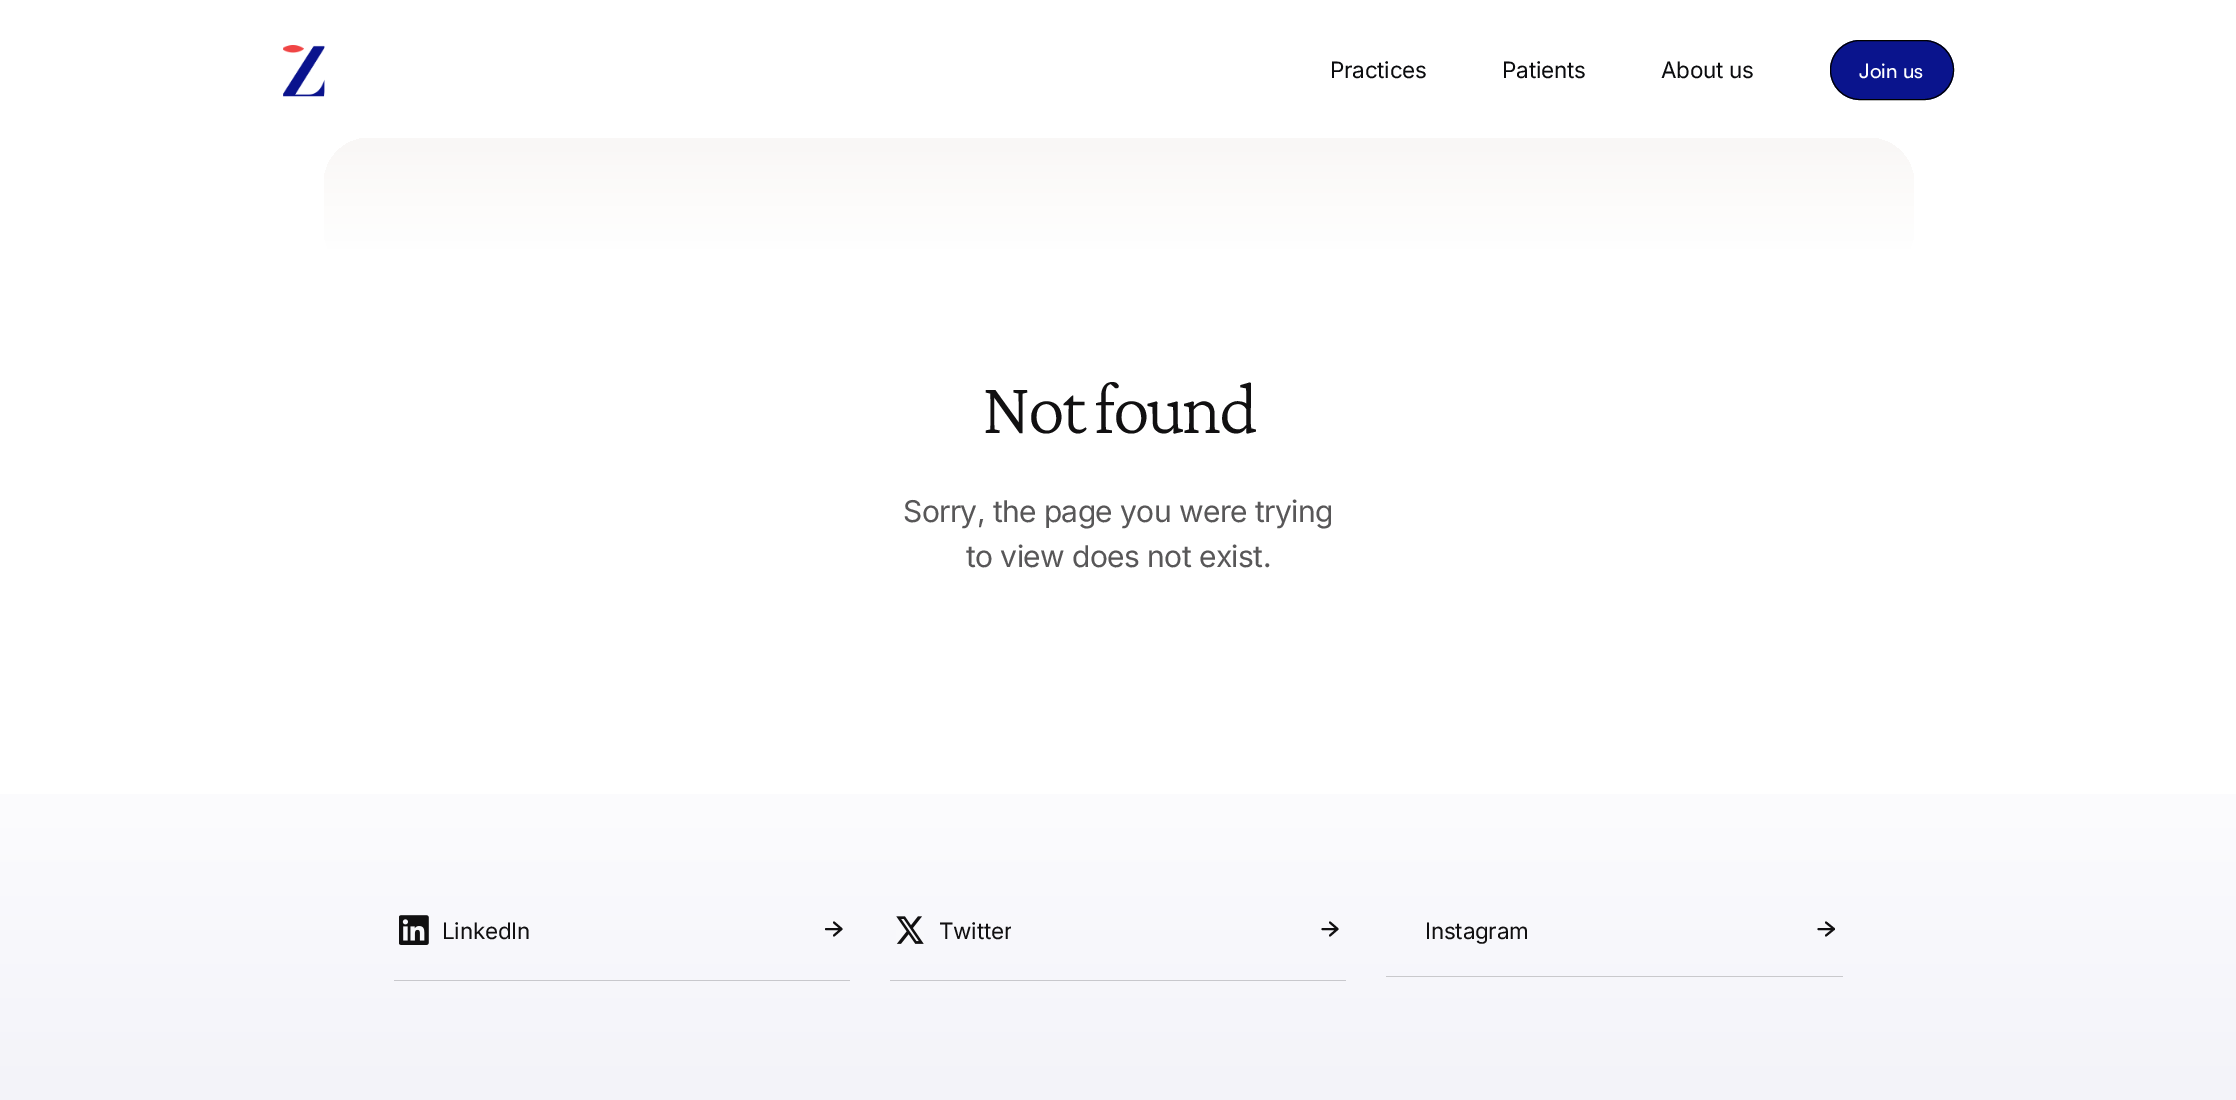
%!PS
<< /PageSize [2236 1100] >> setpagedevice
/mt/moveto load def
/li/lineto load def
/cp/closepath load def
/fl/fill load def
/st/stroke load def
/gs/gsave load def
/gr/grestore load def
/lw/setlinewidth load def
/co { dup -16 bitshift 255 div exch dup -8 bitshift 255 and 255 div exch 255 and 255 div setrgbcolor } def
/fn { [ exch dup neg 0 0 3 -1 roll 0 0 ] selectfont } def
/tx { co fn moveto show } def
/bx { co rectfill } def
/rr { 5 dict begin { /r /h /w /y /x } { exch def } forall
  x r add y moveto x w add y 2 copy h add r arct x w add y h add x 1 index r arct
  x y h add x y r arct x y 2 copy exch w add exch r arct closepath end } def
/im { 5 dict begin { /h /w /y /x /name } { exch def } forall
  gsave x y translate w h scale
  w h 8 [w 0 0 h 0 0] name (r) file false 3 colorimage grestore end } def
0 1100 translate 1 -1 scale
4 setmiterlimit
0 0 2236 1100 16#FFFFFF bx
(media/1.raw) 283 45 42 52 im
16#0A148D co
1830 40 124 60 30 rr fl
16#000000 co
1830.5 40.5 123 59 29.5 rr st
gs 324 138 1590 137 45 rr clip newpath
<< /ShadingType 2 /ColorSpace /DeviceRGB /Coords [1119 137 1119 275] /Extend [true true] /Function << /FunctionType 3 /Domain [0 1] /Functions [<< /FunctionType 2 /Domain [0 1] /C0 [.976 .969 .965] /C1 [1 1 1] /N 1 >> << /FunctionType 2 /Domain [0 1] /C0 [1 1 1] /C1 [1 1 1] /N 1 >>] /Bounds [.84] /Encode [0 1 0 1] >> >> shfill gr
gs 0 794 mt 2236 794 li 2236 1100 li 0 1100 li cp clip newpath
<< /ShadingType 2 /ColorSpace /DeviceRGB /Coords [1118 717 1118 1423] /Extend [true true] /Function << /FunctionType 2 /Domain [0 1] /C0 [1 1 1] /C1 [.91 .91 .953] /N 1 >> >> shfill gr
(media/2.raw) 399 915 30 30 im
16#111011 co
2 lw
1 setlinecap
1 setlinejoin
826 929 mt 841.5 929 li 841.5 929 mt 834 922.5 li 841.5 929 mt 834 935.5 li st
394 980 456 1 16#C8C8CC bx
(media/3.raw) 896 916 28 28 im
16#111011 co
1322.5 929 mt 1337.5 929 li 1337.5 929 mt 1330 922.5 li 1337.5 929 mt 1330 935.5 li st
890 980 456 1 16#C8C8CC bx
16#111011 co
1818.5 929 mt 1834 929 li 1834 929 mt 1826 922.5 li 1834 929 mt 1826 935.5 li st
1386 976 457 1 16#C9C9CC bx
/Inter-Regular 22.5 fn
16#0B0C0E co
1330 78 mt -.25 0 (Practices) ashow
1502 78 mt -.25 0 (Patients) ashow
1661 78 mt -.25 0 (About us) ashow
(Join us) 1859 78 /Satoshi-Medium 20 16#FFFFFF tx
/CrimsonPro-Light 75 fn
16#111011 co
982 433 mt -3 0 (Not found) ashow
/Inter-Regular 30 fn
16#585758 co
903 522 mt -.6 0 (Sorry, the page you were trying) ashow
966 567 mt -.6 0 (to view does not exist.) ashow
/Inter-Regular 22.5 fn
16#111011 co
442 939 mt -.25 0 (LinkedIn) ashow
gs
890 900 121 61 rectclip
939 939 mt -.25 0 (Twitter) ashow
gr
1425 939 mt -.25 0 (Instagram) ashow
showpage
